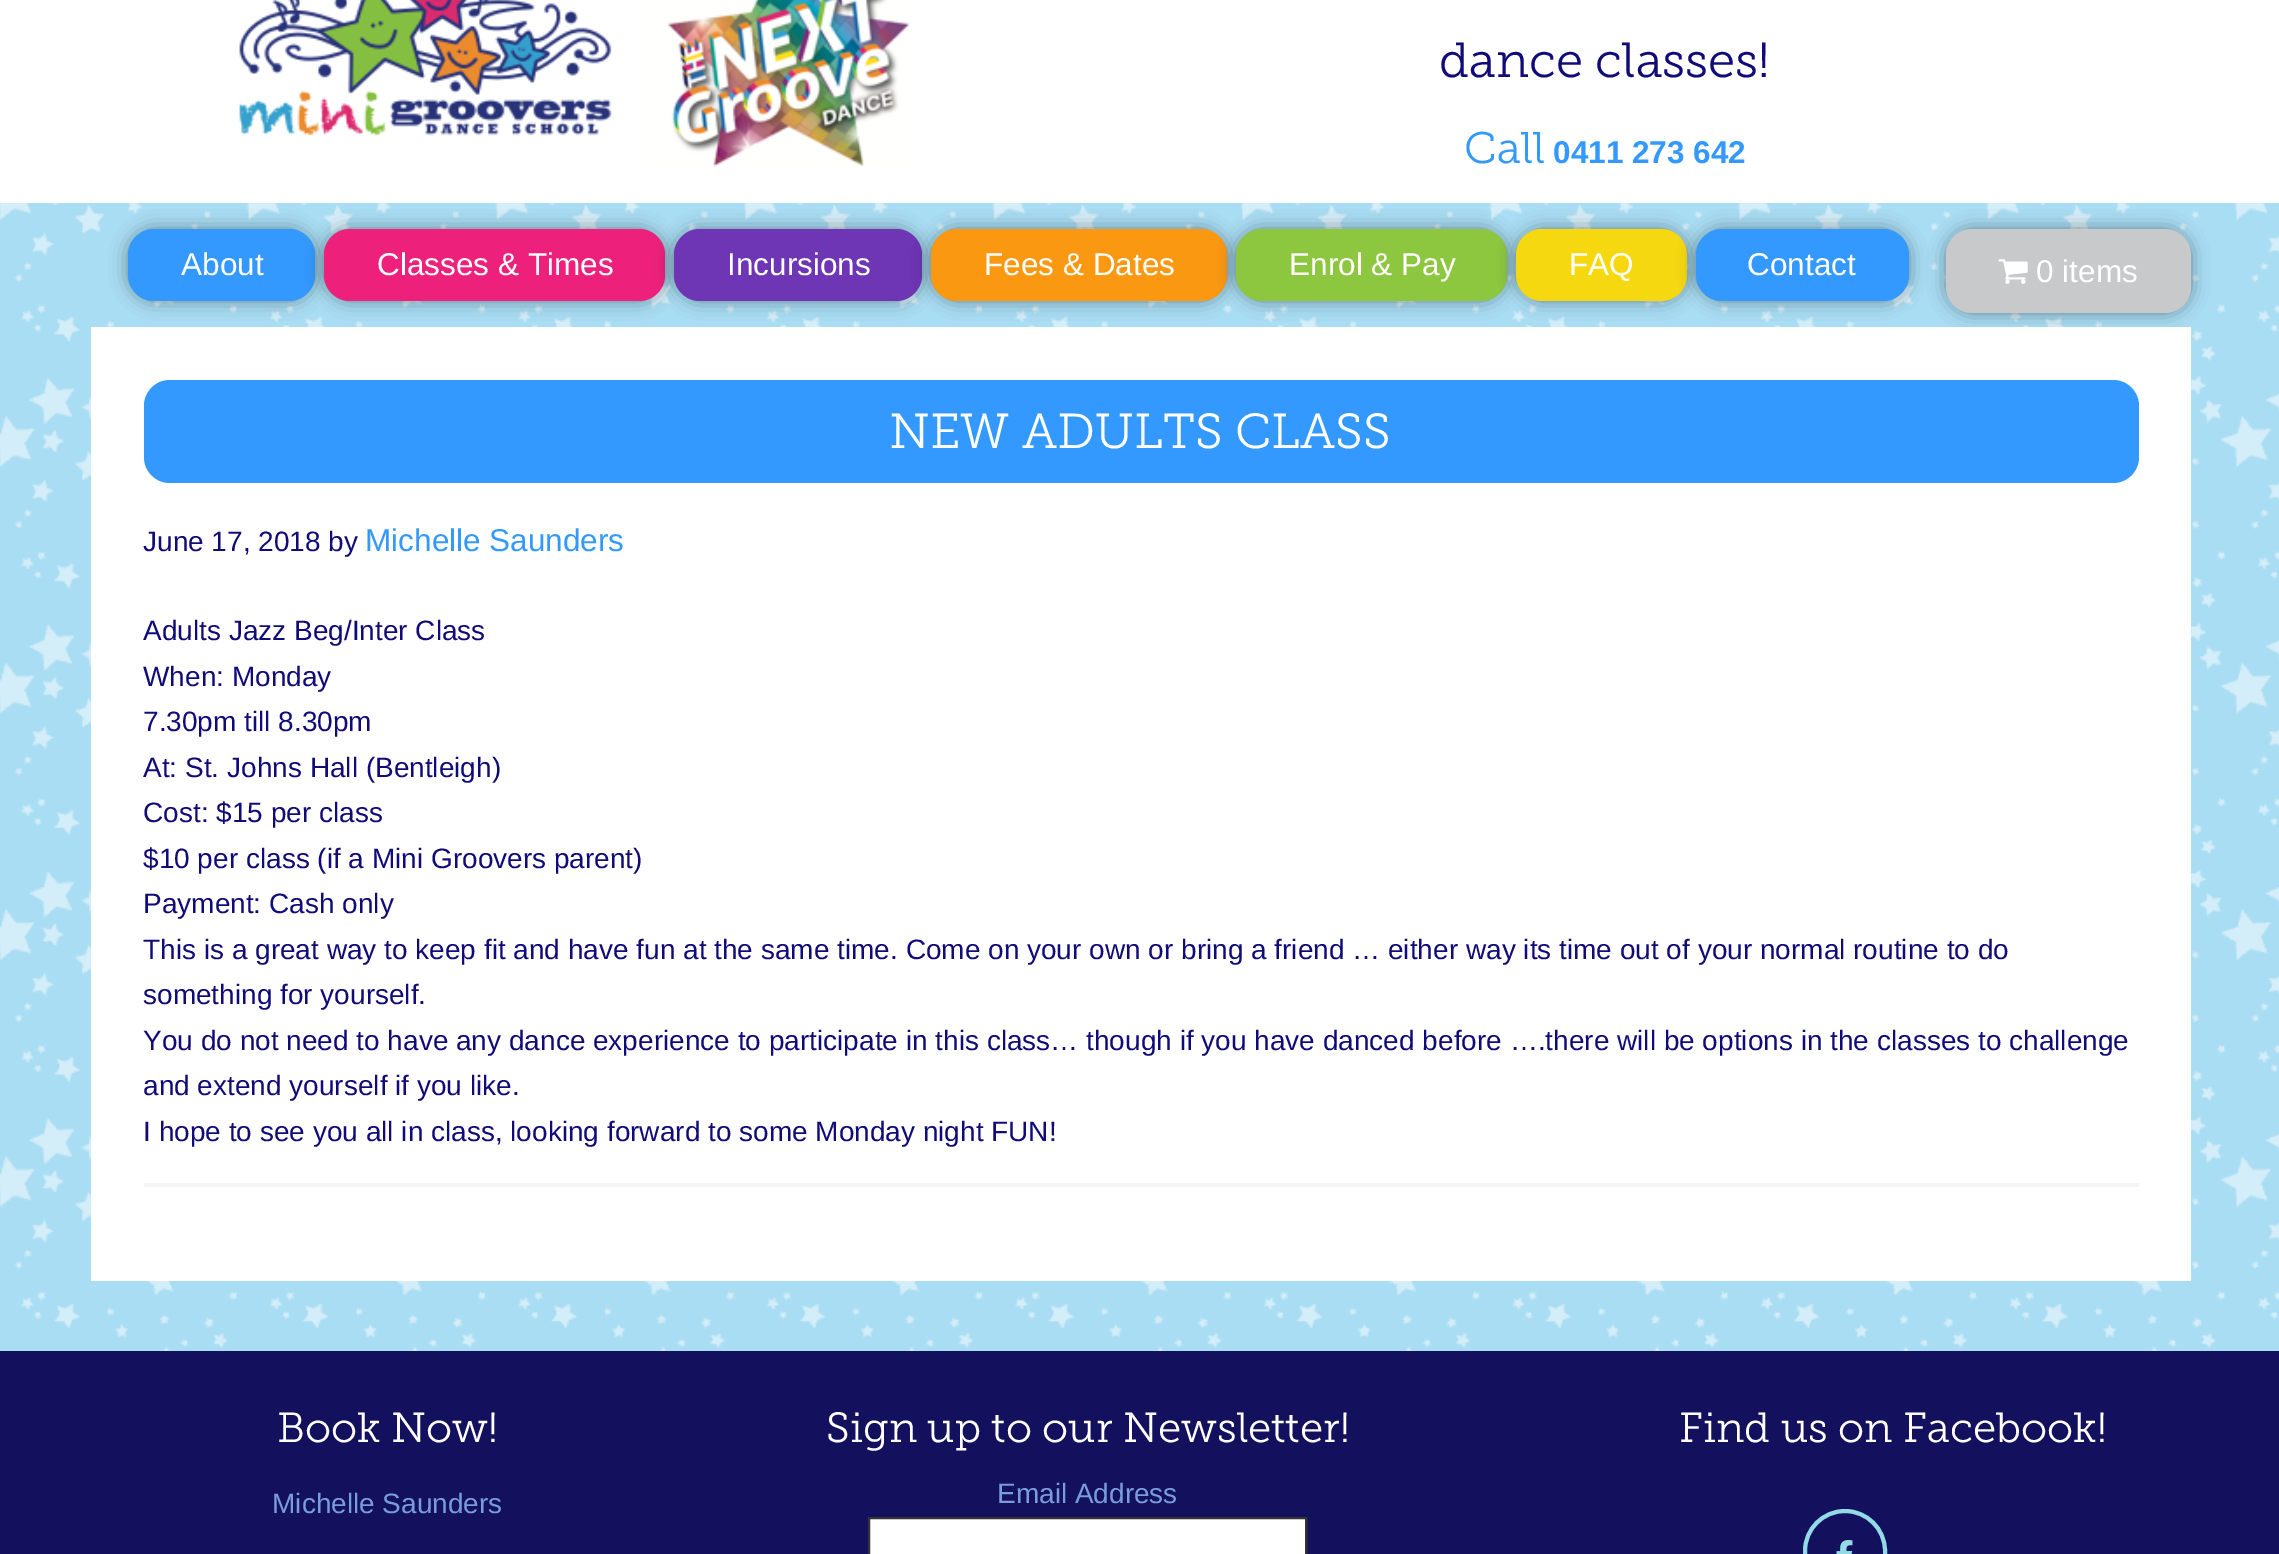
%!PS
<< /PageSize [2279 1554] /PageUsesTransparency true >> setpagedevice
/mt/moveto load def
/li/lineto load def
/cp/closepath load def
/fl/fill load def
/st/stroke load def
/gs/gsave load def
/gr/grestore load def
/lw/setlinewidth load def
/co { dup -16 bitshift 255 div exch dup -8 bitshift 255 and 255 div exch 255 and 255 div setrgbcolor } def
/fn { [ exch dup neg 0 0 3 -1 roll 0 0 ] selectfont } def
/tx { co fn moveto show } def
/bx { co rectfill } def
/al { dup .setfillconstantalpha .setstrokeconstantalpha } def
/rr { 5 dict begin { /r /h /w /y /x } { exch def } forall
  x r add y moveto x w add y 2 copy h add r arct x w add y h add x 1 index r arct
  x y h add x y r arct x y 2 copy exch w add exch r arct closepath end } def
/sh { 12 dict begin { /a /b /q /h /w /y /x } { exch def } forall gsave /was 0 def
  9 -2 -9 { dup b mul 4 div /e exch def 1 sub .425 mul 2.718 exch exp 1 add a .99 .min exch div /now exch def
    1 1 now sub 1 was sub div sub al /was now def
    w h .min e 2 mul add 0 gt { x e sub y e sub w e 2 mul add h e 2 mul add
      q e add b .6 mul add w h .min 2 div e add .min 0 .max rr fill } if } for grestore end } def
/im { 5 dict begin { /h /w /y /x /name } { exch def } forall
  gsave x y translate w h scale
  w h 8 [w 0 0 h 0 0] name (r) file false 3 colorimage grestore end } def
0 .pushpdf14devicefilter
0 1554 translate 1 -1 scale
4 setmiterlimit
0 0 2279 1554 16#FFFFFF bx
(media/1.raw) 0 203 2279 1148 im
(media/2.raw) 239 0 671 167 im
16#000000 co
1946 229 245 84 26 9 .4 sh
91 327 2100 954 16#FFFFFF bx
16#000000 co
128 229 187 72 26 9 .4 sh
16#3399FF co
128 229 187 72 26 rr fl
16#000000 co
324 229 341 72 26 9 .4 sh
16#ED217C co
324 229 341 72 26 rr fl
16#000000 co
674 229 248 72 26 9 .4 sh
16#6E35B4 co
674 229 248 72 26 rr fl
16#000000 co
931 229 296 72 26 9 .4 sh
16#FA9812 co
931 229 296 72 26 rr fl
16#000000 co
1236 229 271 72 26 9 .4 sh
16#8DC63F co
1236 229 271 72 26 rr fl
16#000000 co
1516 229 171 72 26 9 .4 sh
16#F6D811 co
1516 229 171 72 26 rr fl
16#000000 co
1696 229 213 72 26 9 .4 sh
16#3399FF co
1696 229 213 72 26 rr fl
16#C8C9CA co
1946 229 245 84 26 rr fl
(media/3.raw) 1998 259 30 25 im
16#3399FF co
144 380 1995 103 26 rr fl
144 1183 1995 4 16#F5F5F5 bx
0 1351 2279 203 16#13105E bx
16#FFFFFF co
869 1518 mt 1306 1518 li 1306 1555 li 869 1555 li cp gs fl gr
16#333333 co
2 lw
st
16#92DAE5 co
4 lw
1805 1511 80 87 40 rr st
(media/4.raw) 1836 1540 17 14 im
(dance classes!) 1439 77 /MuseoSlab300-Light 49 16#110B79 tx
(Call) 1464 163 /MuseoSlab300-Light 44 16#3399FF tx
(0411 273 642) 1553 163 /LiberationSans-Bold 31.5 16#3399FF tx
(About) 181 275 /LiberationSans-Regular 31.5 16#FFFFFF tx
(Classes & Times) 377 275 /LiberationSans-Regular 31.5 16#FFFFFF tx
(Incursions) 727 275 /LiberationSans-Regular 31.5 16#FFFFFF tx
(Fees & Dates) 984 275 /LiberationSans-Regular 31.5 16#FFFFFF tx
(Enrol & Pay) 1289 275 /LiberationSans-Regular 31.5 16#FFFFFF tx
(FAQ) 1569 275 /LiberationSans-Regular 31.5 16#FFFFFF tx
(Contact) 1747 275 /LiberationSans-Regular 31.5 16#FFFFFF tx
(0 items) 2036 282 /LiberationSans-Regular 31.5 16#FFFFFF tx
(NEW ADULTS CLASS) 889 448 /MuseoSlab300-Light 49 16#FFFFFF tx
(June 17, 2018 by) 143 551 /LiberationSans-Regular 28 16#110B79 tx
(Michelle Saunders) 365 551 /LiberationSans-Regular 31.5 16#3399FF tx
(Adults Jazz Beg/Inter Class) 143 640 /LiberationSans-Regular 28 16#110B79 tx
(When: Monday) 143 686 /LiberationSans-Regular 28 16#110B79 tx
(7.30pm till 8.30pm) 143 731 /LiberationSans-Regular 28 16#110B79 tx
(At: St. Johns Hall \(Bentleigh\)) 143 777 /LiberationSans-Regular 28 16#110B79 tx
(Cost: $15 per class) 143 822 /LiberationSans-Regular 28 16#110B79 tx
($10 per class \(if a Mini Groovers parent\)) 143 868 /LiberationSans-Regular 28 16#110B79 tx
(Payment: Cash only) 143 913 /LiberationSans-Regular 28 16#110B79 tx
(This is a great way to keep fit and have fun at the same time. Come on your own or bring a friend … either way its time out of your normal routine to do) 143 959 /LiberationSans-Regular 28 16#110B79 tx
(something for yourself.) 143 1004 /LiberationSans-Regular 28 16#110B79 tx
(You do not need to have any dance experience to participate in this class… though if you have danced before ….there will be options in the classes to challenge) 143 1050 /LiberationSans-Regular 28 16#110B79 tx
(and extend yourself if you like.) 143 1095 /LiberationSans-Regular 28 16#110B79 tx
(I hope to see you all in class, looking forward to some Monday night FUN!) 143 1141 /LiberationSans-Regular 28 16#110B79 tx
(Book Now!) 277 1442 /MuseoSlab300-Light 42 16#FFFFFF tx
(Michelle Saunders) 272 1513 /LiberationSans-Regular 28 16#799CDD tx
(Sign up to our Newsletter!) 826 1442 /MuseoSlab300-Light 42 16#FFFFFF tx
(Email Address) 997 1503 /LiberationSans-Regular 28 16#799CDD tx
(Find us on Facebook!) 1679 1442 /MuseoSlab300-Light 42 16#FFFFFF tx
.poppdf14devicefilter showpage
